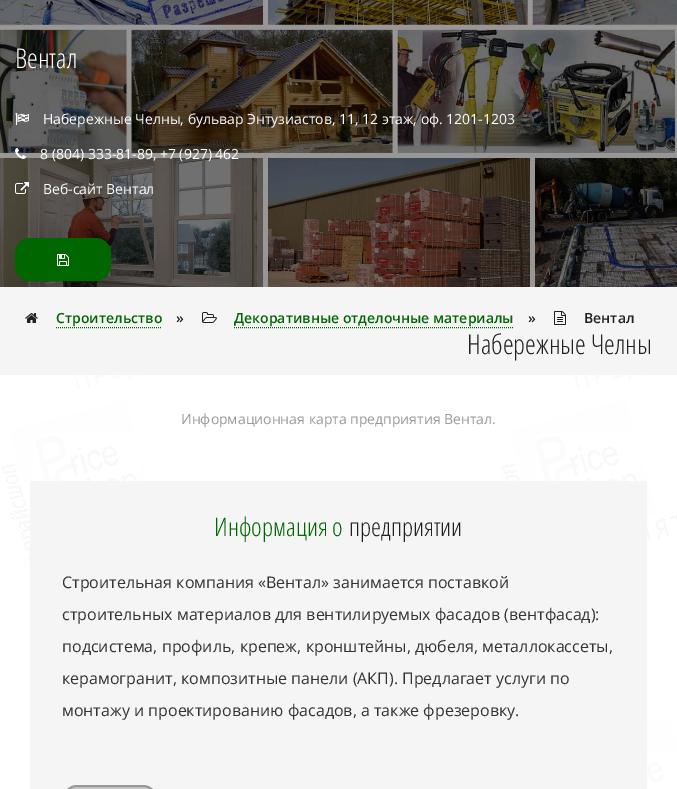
%!PS
<< /PageSize [677 789] >> setpagedevice
/mt/moveto load def
/li/lineto load def
/fl/fill load def
/st/stroke load def
/gs/gsave load def
/gr/grestore load def
/lw/setlinewidth load def
/co { dup -16 bitshift 255 div exch dup -8 bitshift 255 and 255 div exch 255 and 255 div setrgbcolor } def
/fn { [ exch dup neg 0 0 3 -1 roll 0 0 ] selectfont } def
/tx { co fn moveto show } def
/bx { co rectfill } def
/rr { 5 dict begin { /r /h /w /y /x } { exch def } forall
  x r add y moveto x w add y 2 copy h add r arct x w add y h add x 1 index r arct
  x y h add x y r arct x y 2 copy exch w add exch r arct closepath end } def
/im { 5 dict begin { /h /w /y /x /name } { exch def } forall
  gsave x y translate w h scale
  w h 8 [w 0 0 h 0 0] name (r) file false 3 colorimage grestore end } def
0 789 translate 1 -1 scale
4 setmiterlimit
0 0 677 789 16#FFFFFF bx
(media/1.raw) 1 375 676 414 im
(media/2.raw) 0 0 677 287 im
(media/3.raw) 15 113 14 12 im
(media/4.raw) 15 148 11 11 im
(media/5.raw) 15 182 14 12 im
16#006600 co
16 239 94 41 14 rr gs fl gr
2 lw
st
(media/6.raw) 57 254 12 12 im
0 287 677 88 16#F5F5F5 bx
(media/7.raw) 25 313 13 10 im
16#006600 co
1 lw
[1 1] 0 setdash
56 327.5 mt 162 327.5 li st
(media/8.raw) 202 312 15 11 im
234 327.5 mt 514 327.5 li st
(media/9.raw) 554 311 12 14 im
30 481 617 308 16#F5F5F5 bx
16#CCCCCC co
63 786 94 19 14 rr gs fl gr
16#999999 co
2 lw
[] 0 setdash
st
(Вентал) 15 68 /OpenSansCondensed-Light 27.25 16#FFFFFF tx
(Набережные Челны, бульвар Энтузиастов, 11, 12 этаж, оф. 1201-1203) 43 124 /OpenSans-Regular 14 16#FFFFFF tx
(8 \(804\) 333-81-89, +7 \(927\) 462) 40 159 /OpenSans-Regular 14 16#FFFFFF tx
(Веб-сайт Вентал) 43 194 /OpenSans-Regular 14 16#FFFFFF tx
(Строительство) 56 323 /OpenSans-SemiBold 14 16#006600 tx
(») 176 323 /OpenSans-SemiBold 14 16#212121 tx
(Декоративные отделочные материалы) 234 323 /OpenSans-SemiBold 14 16#006600 tx
(») 528 323 /OpenSans-SemiBold 14 16#212121 tx
(Вентал) 584 323 /OpenSans-SemiBold 14 16#212121 tx
(Набережные Челны) 467 354 /OpenSansCondensed-Light 27.25 16#212121 tx
(Информационная карта предприятия Вентал.) 181 424 /OpenSans-Regular 14 16#999999 tx
(Информация о) 214 536 /OpenSansCondensed-Light 25.5 16#006600 tx
(предприятии) 349 536 /OpenSansCondensed-Light 25.5 16#212121 tx
(Строительная компания «Вентал» занимается поставкой) 62 588 /OpenSans-Regular 16 16#333333 tx
(строительных материалов для вентилируемых фасадов \(вентфасад\):) 62 620 /OpenSans-Regular 16 16#333333 tx
(подсистема, профиль, крепеж, кронштейны, дюбеля, металлокассеты,) 62 652 /OpenSans-Regular 16 16#333333 tx
(керамогранит, композитные панели \(АКП\). Предлагает услуги по) 62 684 /OpenSans-Regular 16 16#333333 tx
(монтажу и проектированию фасадов, а также фрезеровку.) 62 716 /OpenSans-Regular 16 16#333333 tx
showpage
